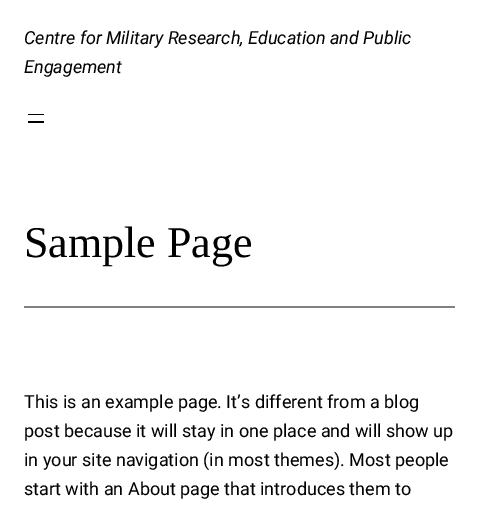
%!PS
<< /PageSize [479 516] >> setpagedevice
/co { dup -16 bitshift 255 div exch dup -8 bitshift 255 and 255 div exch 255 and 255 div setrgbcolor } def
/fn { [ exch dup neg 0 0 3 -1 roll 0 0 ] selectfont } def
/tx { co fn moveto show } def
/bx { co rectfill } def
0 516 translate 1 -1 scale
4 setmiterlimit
0 0 479 516 16#FFFFFF bx
28 114 16 1 16#000000 bx
28 121 16 2 16#000000 bx
24 306 431 2 16#808080 bx
(Centre for Military Research, Education and Public) 24 44 /Roboto-Italic 18 16#000000 tx
(Engagement) 24 73 /Roboto-Italic 18 16#000000 tx
(Sample Page) 24 257 /LiberationSerif-Regular 44 16#000000 tx
(This is an example page. It’s different from a blog) 24 408 /Roboto-Regular 18 16#000000 tx
(post because it will stay in one place and will show up) 24 437 /Roboto-Regular 18 16#000000 tx
(in your site navigation \(in most themes\). Most people) 24 466 /Roboto-Regular 18 16#000000 tx
(start with an About page that introduces them to) 24 495 /Roboto-Regular 18 16#000000 tx
showpage
